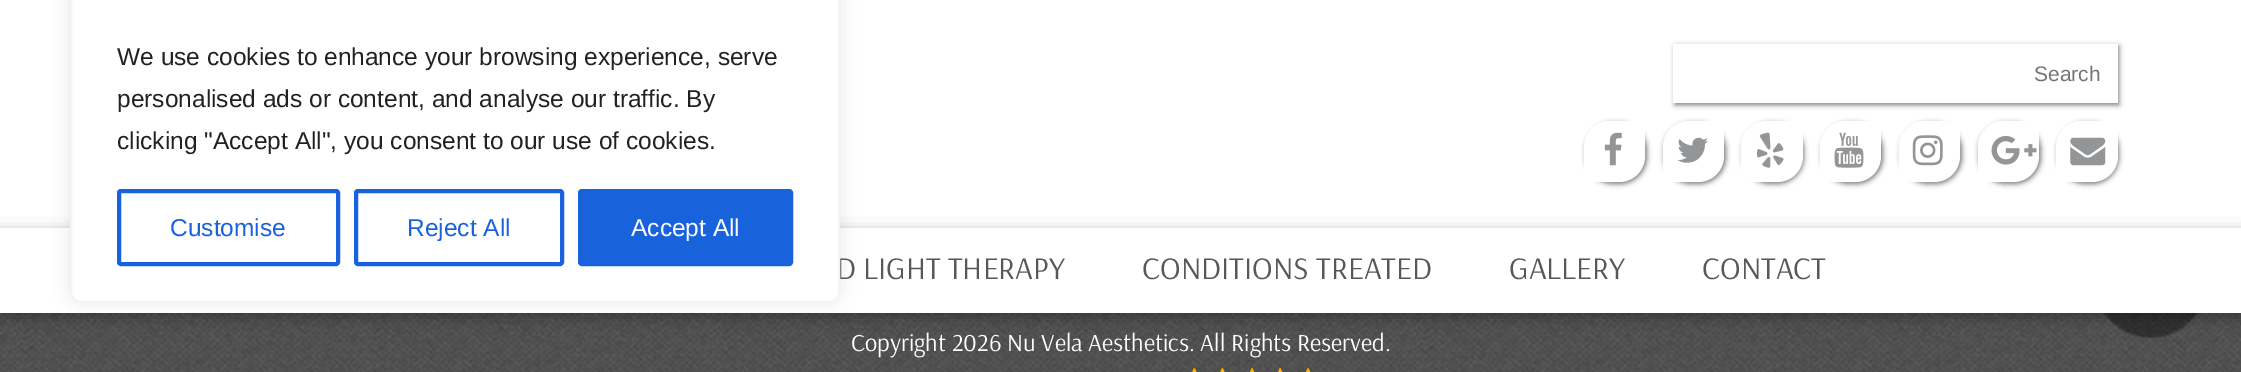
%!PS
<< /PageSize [2241 372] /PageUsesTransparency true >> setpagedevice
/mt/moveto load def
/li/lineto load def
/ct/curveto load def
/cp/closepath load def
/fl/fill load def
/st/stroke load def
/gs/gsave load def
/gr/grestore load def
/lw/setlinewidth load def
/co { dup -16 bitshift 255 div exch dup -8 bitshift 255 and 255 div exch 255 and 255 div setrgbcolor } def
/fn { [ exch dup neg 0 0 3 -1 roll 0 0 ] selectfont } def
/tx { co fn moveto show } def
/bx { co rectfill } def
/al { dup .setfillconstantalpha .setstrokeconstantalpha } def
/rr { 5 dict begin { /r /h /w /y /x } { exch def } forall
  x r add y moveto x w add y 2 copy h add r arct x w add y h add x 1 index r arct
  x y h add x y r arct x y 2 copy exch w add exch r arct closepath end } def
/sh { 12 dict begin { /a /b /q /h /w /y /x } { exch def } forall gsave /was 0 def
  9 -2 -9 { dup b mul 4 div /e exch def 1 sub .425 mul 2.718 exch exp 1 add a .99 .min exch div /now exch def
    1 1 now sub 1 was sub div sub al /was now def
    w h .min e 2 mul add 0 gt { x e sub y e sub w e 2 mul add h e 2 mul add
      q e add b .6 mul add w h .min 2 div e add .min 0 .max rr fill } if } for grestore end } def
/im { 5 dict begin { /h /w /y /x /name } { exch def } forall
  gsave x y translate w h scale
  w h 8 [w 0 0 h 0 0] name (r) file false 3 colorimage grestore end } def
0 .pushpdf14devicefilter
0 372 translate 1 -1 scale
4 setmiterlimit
0 0 2241 372 16#FFFFFF bx
(media/9.raw) 0 313 2241 59 im
16#ACABAB co
70 -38 770 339 11 9 .3 sh
16#000000 co
1675 46 444 59 0 2.5 .5 sh
1673 44 445 59 16#FFFFFF bx
16#000000 co
1586 123 61 61 26 2.5 .5 sh
16#FFFFFF co
1610 121 mt 1645 121 li 1645 156 li 1645 170.5 1633.5 182 1619 182 ct 1584 182 li 1584 147 li 1584 132.5 1595.5 121 1610 121 ct cp fl
(media/1.raw) 1604 132 18 34 im
16#000000 co
1664 123 62 61 26 2.5 .5 sh
16#FFFFFF co
1689 121 mt 1724 121 li 1724 156 li 1724 170.5 1712.5 182 1698 182 ct 1663 182 li 1663 147 li 1663 132.5 1674.5 121 1689 121 ct cp fl
(media/2.raw) 1677 137 31 26 im
16#000000 co
1743 123 61 61 26 2.5 .5 sh
16#FFFFFF co
1767 121 mt 1803 121 li 1803 156 li 1803 170.5 1791.5 182 1777 182 ct 1741 182 li 1741 147 li 1741 132.5 1752.5 121 1767 121 ct cp fl
(media/3.raw) 1756 132 28 36 im
16#000000 co
1822 123 61 61 26 2.5 .5 sh
16#FFFFFF co
1846 121 mt 1881 121 li 1881 156 li 1881 170.5 1869.5 182 1855 182 ct 1820 182 li 1820 147 li 1820 132.5 1831.5 121 1846 121 ct cp fl
(media/4.raw) 1834 132 30 36 im
16#000000 co
1901 123 61 61 26 2.5 .5 sh
16#FFFFFF co
1925 121 mt 1960 121 li 1960 156 li 1960 170.5 1948.5 182 1934 182 ct 1899 182 li 1899 147 li 1899 132.5 1910.5 121 1925 121 ct cp fl
(media/5.raw) 1912 135 31 31 im
16#000000 co
1979 123 62 61 26 2.5 .5 sh
16#FFFFFF co
2004 121 mt 2039 121 li 2039 156 li 2039 170.5 2027.5 182 2013 182 ct 1978 182 li 1978 147 li 1978 132.5 1989.5 121 2004 121 ct cp fl
(media/6.raw) 1991 136 46 29 im
16#000000 co
2058 123 61 61 26 2.5 .5 sh
16#FFFFFF co
2082 121 mt 2118 121 li 2118 156 li 2118 170.5 2106.5 182 2092 182 ct 2056 182 li 2056 147 li 2056 132.5 2067.5 121 2082 121 ct cp fl
(media/7.raw) 2070 137 36 29 im
(media/8.raw) 2103 313 96 25 im
gs
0 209 mt 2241 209 li 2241 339 li 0 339 li cp 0 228 mt 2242 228 li 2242 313 li 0 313 li cp eoclip newpath
16#000000 co
0 231 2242 86 0 7 .3 sh
gr
(media/10.raw) 1192 368 5 4 im
(media/11.raw) 1220 368 5 4 im
(media/12.raw) 1250 368 5 4 im
(media/13.raw) 1278 368 5 4 im
(media/14.raw) 1306 368 5 4 im
(Search) 2034 81 /LiberationSans-Regular 21 16#757575 tx
(D LIGHT THERAPY) 836 279 /Arsenal-Regular 31.5 16#58585B tx
16#FFFFFF co
71 -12 768 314 10 rr gs fl gr
16#F4F4F4 co
2 lw
st
16#1863DC co
580 191 211 73 2 rr gs fl gr
4 lw
st
(Accept All) 631 236 /LiberationSans-Regular 24.5 16#FFFFFF tx
16#1863DC co
356 191 206 73 2 rr st
(Reject All) 407 236 /LiberationSans-Regular 24.5 16#1863DC tx
119 191 219 73 2 rr st
(Customise) 170 236 /LiberationSans-Regular 24.5 16#1863DC tx
(clicking "Accept All", you consent to our use of cookies.) 117 149 /LiberationSans-Regular 24.5 16#212121 tx
(personalised ads or content, and analyse our traffic. By) 117 107 /LiberationSans-Regular 24.5 16#212121 tx
(We use cookies to enhance your browsing experience, serve) 117 65 /LiberationSans-Regular 24.5 16#212121 tx
(CONDITIONS TREATED) 1142 279 /Arsenal-Regular 31.5 16#58585B tx
(GALLERY) 1509 279 /Arsenal-Regular 31.5 16#58585B tx
(CONTACT) 1702 279 /Arsenal-Regular 31.5 16#58585B tx
(Copyright 2026 Nu Vela Aesthetics. All Rights Reserved.) 851 351 /Arsenal-Regular 24.5 16#FFFFFF tx
.poppdf14devicefilter showpage
